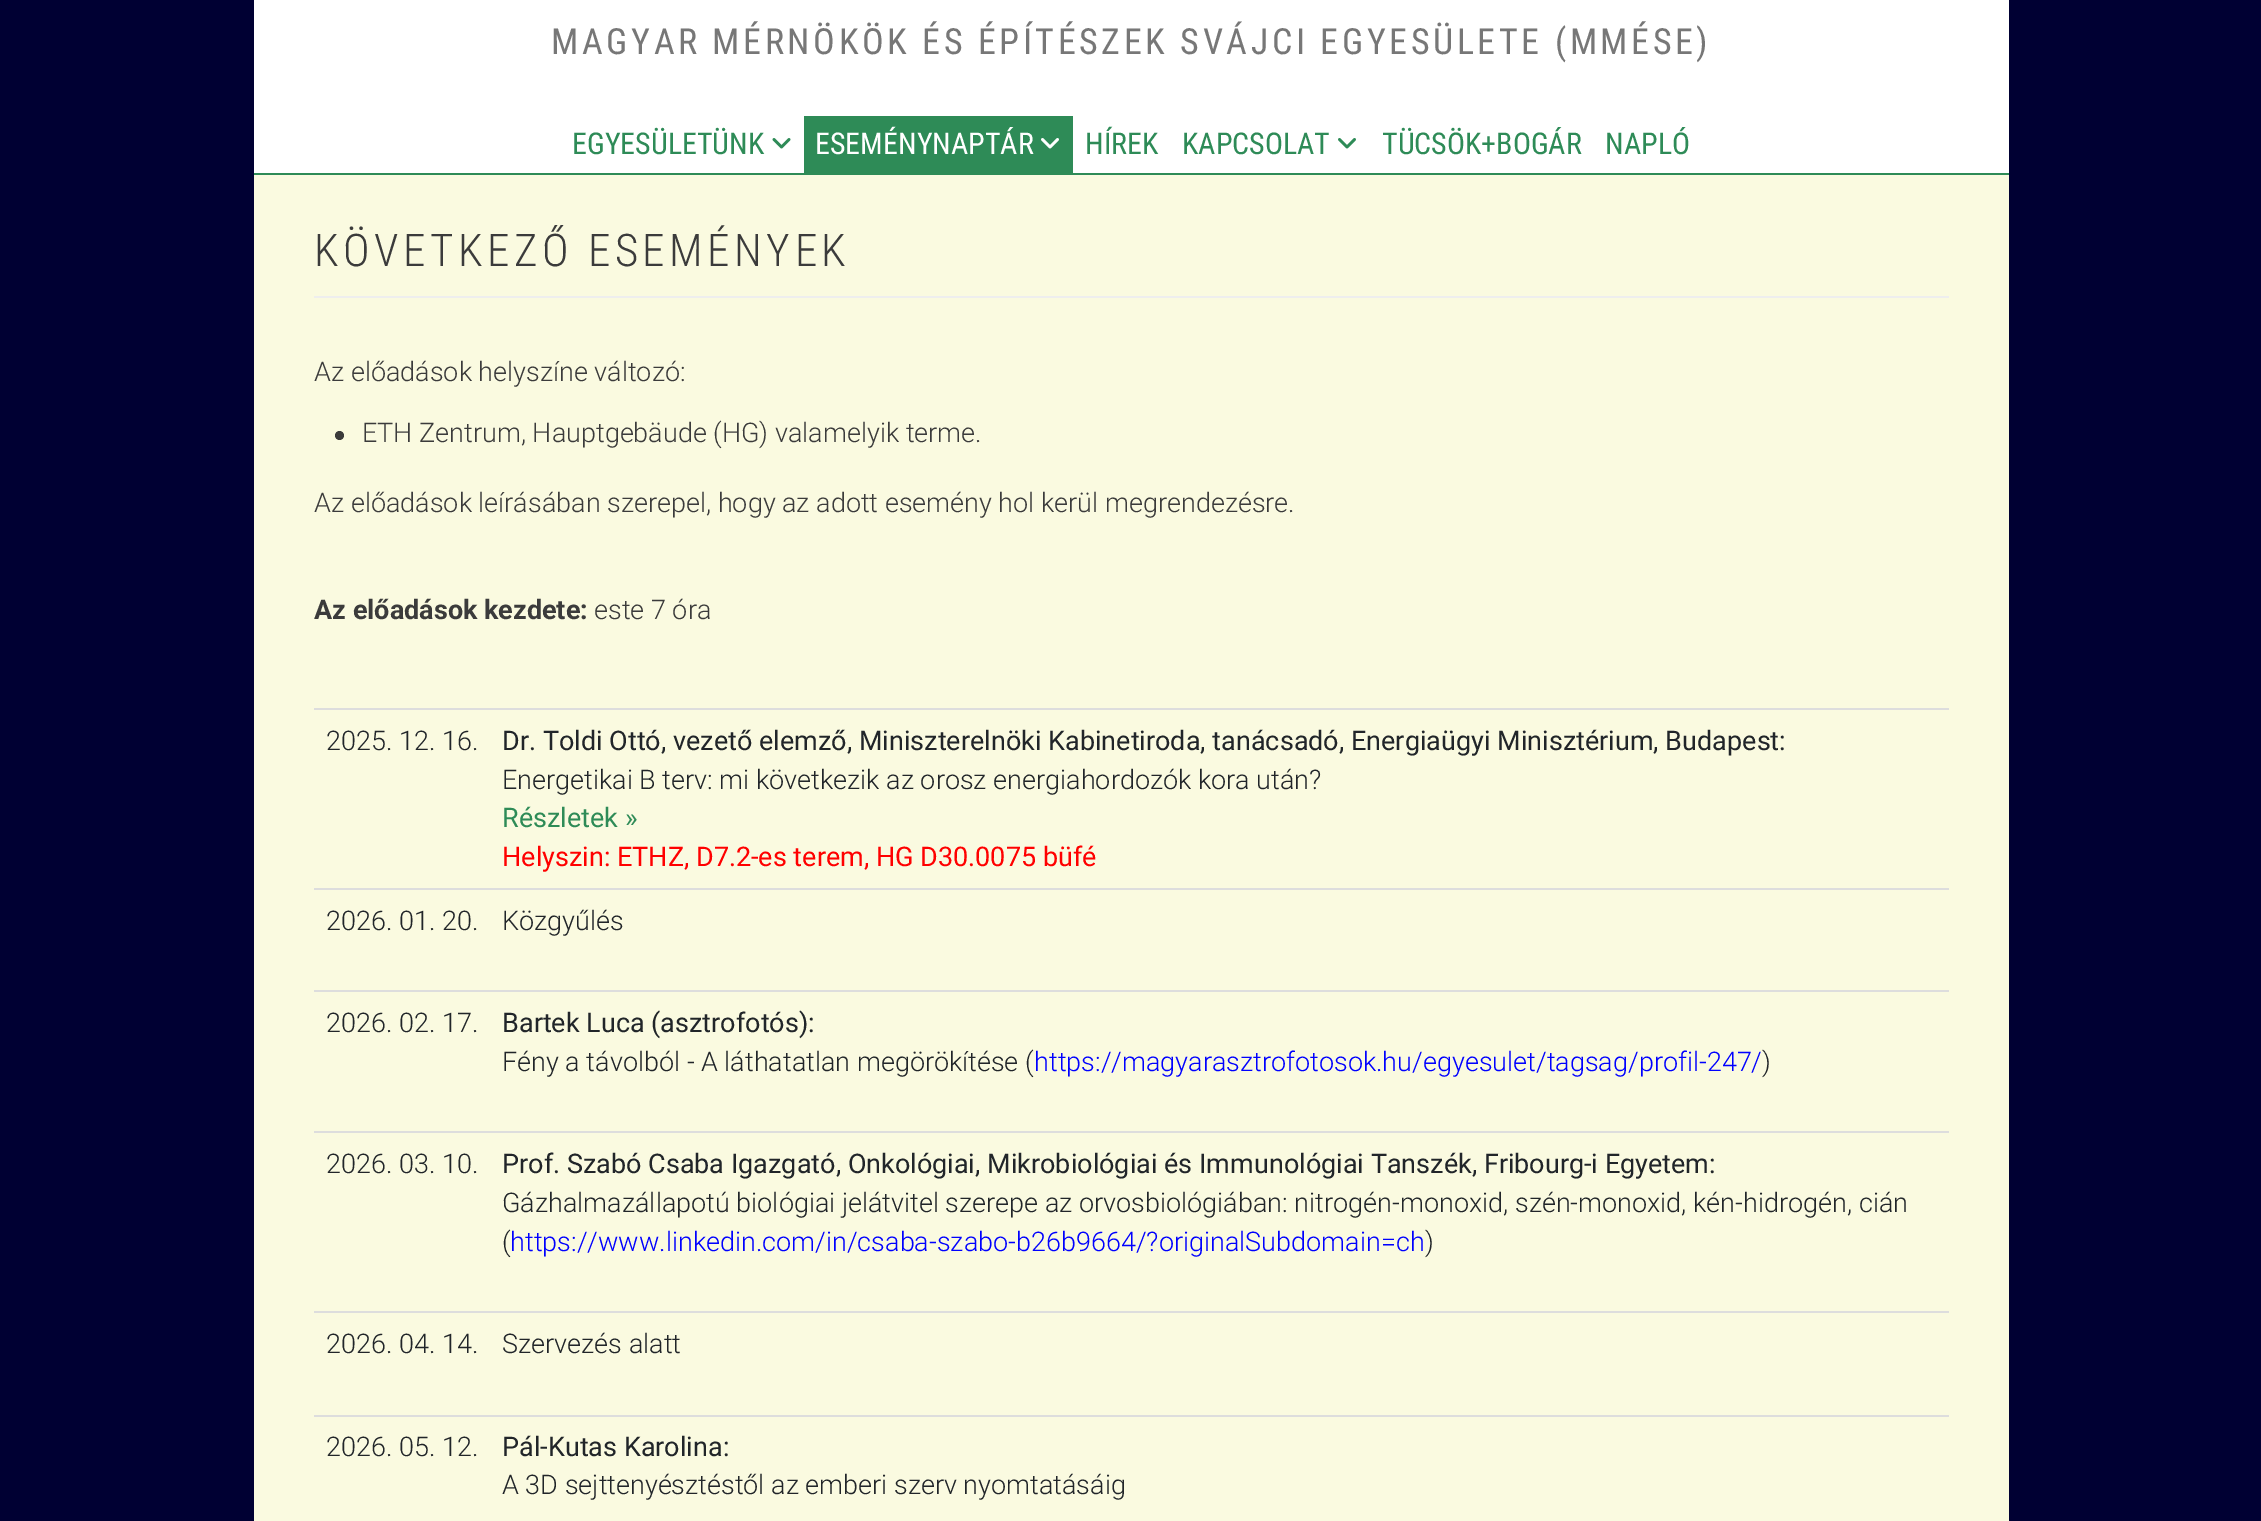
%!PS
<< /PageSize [2261 1521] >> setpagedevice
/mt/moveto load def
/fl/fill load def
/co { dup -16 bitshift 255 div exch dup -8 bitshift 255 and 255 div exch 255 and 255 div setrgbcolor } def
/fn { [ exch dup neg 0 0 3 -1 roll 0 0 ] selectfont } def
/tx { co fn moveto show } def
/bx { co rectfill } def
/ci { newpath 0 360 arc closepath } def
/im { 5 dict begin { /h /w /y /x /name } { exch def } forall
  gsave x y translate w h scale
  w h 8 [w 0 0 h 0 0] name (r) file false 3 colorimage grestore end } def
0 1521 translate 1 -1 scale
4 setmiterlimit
0 0 2261 1521 16#000033 bx
254 0 1755 173 16#FFFFFF bx
254 173 1755 2 16#2E8B57 bx
(media/1.raw) 772 138 19 11 im
804 116 269 57 16#2E8B57 bx
(media/2.raw) 1041 138 18 11 im
(media/3.raw) 1338 138 18 11 im
254 175 1755 1346 16#FAFAE0 bx
314 296 1635 2 16#EEEEEE bx
16#3B3B3B co
339.5 435.5 4.5 ci fl
314 708 1635 2 16#DDDDDD bx
314 888 1635 2 16#DDDDDD bx
314 990 1635 2 16#DDDDDD bx
314 1131 1635 2 16#DDDDDD bx
314 1311 1635 2 16#DDDDDD bx
314 1415 1635 2 16#DDDDDD bx
/RobotoCondensed-Regular 36 fn
16#777777 co
551 54 mt 3.6 0 (MAGYAR MÉRNÖKÖK ÉS ÉPÍTÉSZEK SVÁJCI EGYESÜLETE \(MMÉSE\)) ashow
(EGYESÜLETÜNK) 572 154 /RobotoCondensed-Regular 30 16#2E8B57 tx
(ESEMÉNYNAPTÁR) 815 154 /RobotoCondensed-Regular 30 16#FFFFFF tx
(HÍREK) 1085 154 /RobotoCondensed-Regular 30 16#2E8B57 tx
(KAPCSOLAT) 1182 154 /RobotoCondensed-Regular 30 16#2E8B57 tx
(TÜCSÖK+BOGÁR) 1382 154 /RobotoCondensed-Regular 30 16#2E8B57 tx
(NAPLÓ) 1605 154 /RobotoCondensed-Regular 30 16#2E8B57 tx
/RobotoCondensed-Light 45 fn
16#3B3B3B co
314 266 mt 4.5 0 (KÖVETKEZŐ ESEMÉNYEK) ashow
(Az előadások helyszíne változó:) 314 381 /Roboto-Light 27 16#3B3B3B tx
(ETH Zentrum, Hauptgebäude \(HG\) valamelyik terme.) 362 442 /Roboto-Light 27 16#3B3B3B tx
(Az előadások leírásában szerepel, hogy az adott esemény hol kerül megrendezésre.) 314 512 /Roboto-Light 27 16#3B3B3B tx
(Az előadások kezdete:) 314 619 /Roboto-Bold 27 16#3B3B3B tx
(este 7 óra) 594 619 /Roboto-Light 27 16#3B3B3B tx
(2025. 12. 16.) 326 750 /Roboto-Light 27 16#212529 tx
(Dr. Toldi Ottó, vezető elemző, Miniszterelnöki Kabinetiroda, tanácsadó, Energiaügyi Minisztérium, Budapest:) 502 750 /Roboto-Regular 27 16#212529 tx
(Energetikai B terv: mi következik az orosz energiahordozók kora után?) 502 789 /Roboto-Light 27 16#212529 tx
(Részletek ») 502 827 /Roboto-Regular 27 16#2E8B57 tx
(Helyszin: ETHZ, D7.2-es terem, HG D30.0075 büfé) 502 866 /Roboto-Regular 27 16#FF0000 tx
(2026. 01. 20.) 326 930 /Roboto-Light 27 16#212529 tx
(Közgyűlés) 502 930 /Roboto-Light 27 16#212529 tx
(2026. 02. 17.) 326 1032 /Roboto-Light 27 16#212529 tx
(Bartek Luca \(asztrofotós\):) 502 1032 /Roboto-Regular 27 16#212529 tx
(Fény a távolból - A láthatatlan megörökítése \() 502 1071 /Roboto-Light 27 16#212529 tx
(https://magyarasztrofotosok.hu/egyesulet/tagsag/profil-247/) 1034 1071 /Roboto-Light 27 16#0000FF tx
(\)) 1762 1071 /Roboto-Light 27 16#212529 tx
(2026. 03. 10.) 326 1173 /Roboto-Light 27 16#212529 tx
(Prof. Szabó Csaba Igazgató, Onkológiai, Mikrobiológiai és Immunológiai Tanszék, Fribourg-i Egyetem:) 502 1173 /Roboto-Regular 27 16#212529 tx
(Gázhalmazállapotú biológiai jelátvitel szerepe az orvosbiológiában: nitrogén-monoxid, szén-monoxid, kén-hidrogén, cián) 502 1212 /Roboto-Light 27 16#212529 tx
(\() 502 1251 /Roboto-Light 27 16#212529 tx
(https://www.linkedin.com/in/csaba-szabo-b26b9664/?originalSubdomain=ch) 510 1251 /Roboto-Light 27 16#0000FF tx
(\)) 1425 1251 /Roboto-Light 27 16#212529 tx
(2026. 04. 14.) 326 1353 /Roboto-Light 27 16#212529 tx
(Szervezés alatt) 502 1353 /Roboto-Light 27 16#212529 tx
(2026. 05. 12.) 326 1456 /Roboto-Light 27 16#212529 tx
(Pál-Kutas Karolina:) 502 1456 /Roboto-Regular 27 16#212529 tx
(A 3D sejttenyésztéstől az emberi szerv nyomtatásáig) 502 1494 /Roboto-Light 27 16#212529 tx
showpage
